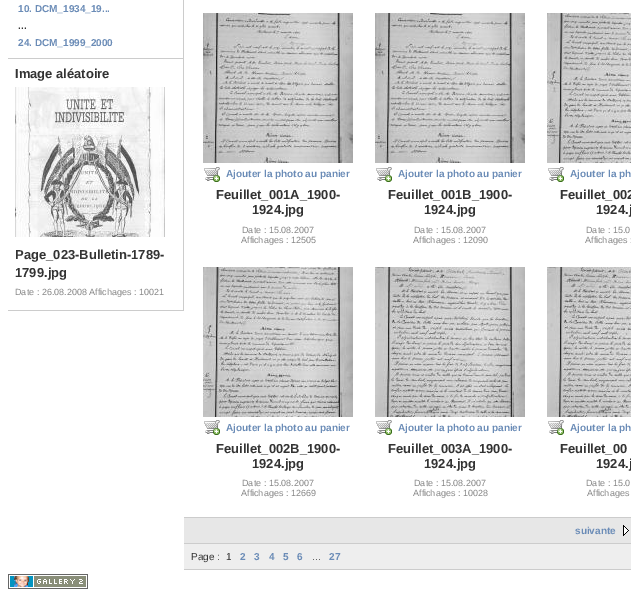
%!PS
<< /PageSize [631 599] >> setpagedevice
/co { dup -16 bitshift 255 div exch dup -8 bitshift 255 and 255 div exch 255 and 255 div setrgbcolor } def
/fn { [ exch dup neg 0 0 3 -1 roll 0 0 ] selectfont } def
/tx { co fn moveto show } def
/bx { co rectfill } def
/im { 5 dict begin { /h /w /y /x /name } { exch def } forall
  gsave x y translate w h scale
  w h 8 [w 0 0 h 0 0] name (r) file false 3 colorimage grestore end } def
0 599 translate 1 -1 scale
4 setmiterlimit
0 0 631 599 16#FFFFFF bx
183 0 1 311 16#CCCCCC bx
8 58 175 1 16#CCCCCC bx
8 310 175 1 16#CCCCCC bx
(media/1.raw) 15 87 150 150 im
184 517 447 1 16#CCCCCC bx
(media/2.raw) 203 13 150 150 im
(media/3.raw) 204 167 16 15 im
(media/2.raw) 375 13 150 150 im
(media/3.raw) 376 167 16 15 im
(media/4.raw) 547 13 84 150 im
(media/3.raw) 548 167 16 15 im
(media/5.raw) 203 267 150 150 im
(media/3.raw) 204 420 16 15 im
(media/6.raw) 375 267 150 150 im
(media/3.raw) 376 420 16 15 im
(media/7.raw) 547 267 84 150 im
(media/3.raw) 548 420 16 15 im
184 518 447 25 16#E7E7E7 bx
184 543 447 1 16#CCCCCC bx
(media/8.raw) 623 525 6 11 im
184 544 447 25 16#EEEEEE bx
184 569 447 1 16#CCCCCC bx
(media/9.raw) 8 574 80 15 im
(10. DCM_1934_19...) 18 12 /LiberationSans-Bold 10 16#6B8CB7 tx
(...) 18 29 /LiberationSans-Bold 10 16#333333 tx
(24. DCM_1999_2000) 18 46 /LiberationSans-Bold 10 16#6B8CB7 tx
(Image aléatoire) 15 78 /LiberationSans-Bold 13 16#333333 tx
(Page_023-Bulletin-1789-) 15 259 /LiberationSans-Bold 13 16#333333 tx
(1799.jpg) 15 277 /LiberationSans-Bold 13 16#333333 tx
(Date : 26.08.2008 Affichages : 10021) 15 295 /LiberationSans-Regular 9 16#888888 tx
(Ajouter la photo au panier) 226 177 /LiberationSans-Bold 10 16#6B8CB7 tx
(Feuillet_001A_1900-) 216 199 /LiberationSans-Bold 13 16#333333 tx
(1924.jpg) 252 214 /LiberationSans-Bold 13 16#333333 tx
(Date : 15.08.2007) 242 233 /LiberationSans-Regular 9 16#888888 tx
(Affichages : 12505) 241 243 /LiberationSans-Regular 9 16#888888 tx
(Ajouter la photo au panier) 398 177 /LiberationSans-Bold 10 16#6B8CB7 tx
(Feuillet_001B_1900-) 388 199 /LiberationSans-Bold 13 16#333333 tx
(1924.jpg) 424 214 /LiberationSans-Bold 13 16#333333 tx
(Date : 15.08.2007) 414 233 /LiberationSans-Regular 9 16#888888 tx
(Affichages : 12090) 413 243 /LiberationSans-Regular 9 16#888888 tx
(Ajouter la ph) 570 177 /LiberationSans-Bold 10 16#6B8CB7 tx
(Feuillet_002) 560 199 /LiberationSans-Bold 13 16#333333 tx
(1924.j) 596 214 /LiberationSans-Bold 13 16#333333 tx
(Date : 15.0) 586 233 /LiberationSans-Regular 9 16#888888 tx
(Affichages :) 585 243 /LiberationSans-Regular 9 16#888888 tx
(Ajouter la photo au panier) 226 431 /LiberationSans-Bold 10 16#6B8CB7 tx
(Feuillet_002B_1900-) 216 453 /LiberationSans-Bold 13 16#333333 tx
(1924.jpg) 252 468 /LiberationSans-Bold 13 16#333333 tx
(Date : 15.08.2007) 242 486 /LiberationSans-Regular 9 16#888888 tx
(Affichages : 12669) 241 496 /LiberationSans-Regular 9 16#888888 tx
(Ajouter la photo au panier) 398 431 /LiberationSans-Bold 10 16#6B8CB7 tx
(Feuillet_003A_1900-) 388 453 /LiberationSans-Bold 13 16#333333 tx
(1924.jpg) 424 468 /LiberationSans-Bold 13 16#333333 tx
(Date : 15.08.2007) 414 486 /LiberationSans-Regular 9 16#888888 tx
(Affichages : 10028) 413 496 /LiberationSans-Regular 9 16#888888 tx
(Ajouter la ph) 570 431 /LiberationSans-Bold 10 16#6B8CB7 tx
(Feuillet_00) 560 453 /LiberationSans-Bold 13 16#333333 tx
(1924.j) 596 468 /LiberationSans-Bold 13 16#333333 tx
(Date : 15.0) 586 486 /LiberationSans-Regular 9 16#888888 tx
(Affichages) 587 496 /LiberationSans-Regular 9 16#888888 tx
(suivante) 575 534 /LiberationSans-Bold 10 16#6B8CB7 tx
(Page :) 191 560 /LiberationSans-Regular 10 16#333333 tx
(1) 226 560 /LiberationSans-Regular 10 16#333333 tx
(2) 240 560 /LiberationSans-Bold 10 16#6B8CB7 tx
(3) 254 560 /LiberationSans-Bold 10 16#6B8CB7 tx
(4) 269 560 /LiberationSans-Bold 10 16#6B8CB7 tx
(5) 283 560 /LiberationSans-Bold 10 16#6B8CB7 tx
(6) 297 560 /LiberationSans-Bold 10 16#6B8CB7 tx
(...) 312 560 /LiberationSans-Regular 10 16#333333 tx
(27) 329 560 /LiberationSans-Bold 10 16#6B8CB7 tx
showpage
